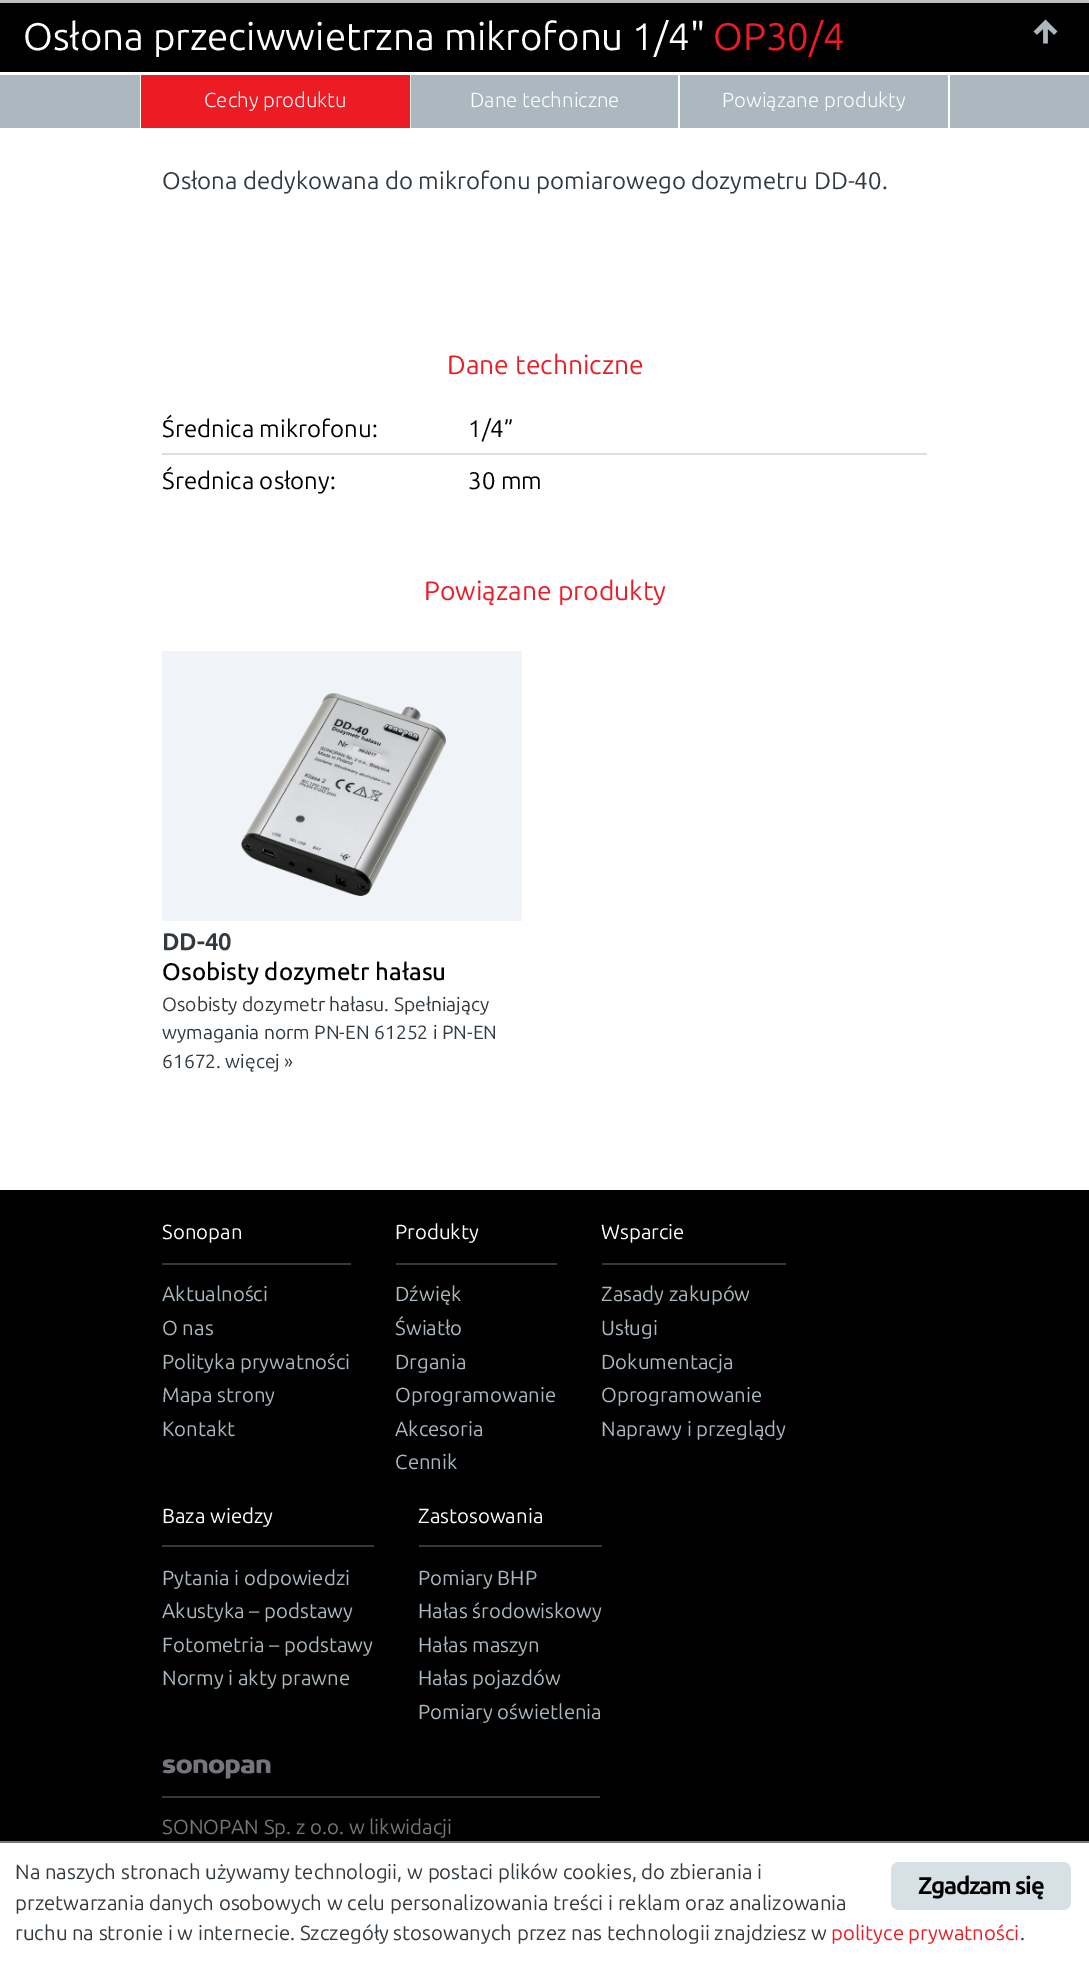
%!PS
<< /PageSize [1089 1963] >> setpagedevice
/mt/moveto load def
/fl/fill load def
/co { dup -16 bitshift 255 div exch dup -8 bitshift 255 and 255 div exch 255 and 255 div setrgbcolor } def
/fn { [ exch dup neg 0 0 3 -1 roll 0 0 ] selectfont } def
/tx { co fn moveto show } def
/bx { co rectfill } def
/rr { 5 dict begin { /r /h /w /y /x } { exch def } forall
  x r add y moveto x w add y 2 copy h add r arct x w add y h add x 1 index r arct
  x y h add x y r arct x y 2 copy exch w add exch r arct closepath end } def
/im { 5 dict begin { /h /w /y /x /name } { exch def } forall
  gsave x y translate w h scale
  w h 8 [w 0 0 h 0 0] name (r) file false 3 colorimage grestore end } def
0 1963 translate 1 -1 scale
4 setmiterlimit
0 0 1089 1963 16#000000 bx
0 128 1089 1062 16#FFFFFF bx
0 0 1089 3 16#BFBFBF bx
(media/1.raw) 1033 19 25 25 im
0 75 1089 53 16#ACB8BF bx
0 72 1089 3 16#FFFFFF bx
140 75 810 53 16#FFFFFF bx
141 75 269 53 16#ED1C24 bx
411 75 267 53 16#ACB8BF bx
680 75 268 53 16#ACB8BF bx
162 453 765 2 16#D6E0E5 bx
162 651 360 270 16#F0F4F8 bx
(media/2.raw) 241 693 205 203 im
162 1263 189 2 16#323A40 bx
396 1263 161 2 16#323A40 bx
602 1263 184 2 16#323A40 bx
162 1545 212 2 16#323A40 bx
419 1545 183 2 16#323A40 bx
(media/3.raw) 162 1759 109 20 im
162 1796 438 2 16#323A40 bx
0 1843 1089 120 16#FFFFFF bx
0 1841 1089 2 16#757679 bx
16#D6E0E5 co
891 1862 180 48 8 rr fl
(Osłona przeciwwietrzna mikrofonu 1/4") 23 50 /Ubuntu-Regular 38.4 16#FFFFFF tx
(OP30/4) 713 50 /Ubuntu-Regular 38.4 16#ED1C24 tx
(Cechy produktu) 204 107 /Ubuntu-Light 20.4 16#FFFFFF tx
(Dane techniczne) 470 107 /Ubuntu-Light 20.4 16#FFFFFF tx
(Powiązane produkty) 722 107 /Ubuntu-Light 20.4 16#FFFFFF tx
(Osłona dedykowana do mikrofonu pomiarowego dozymetru DD-40.) 162 189 /Ubuntu-Regular 24 16#323A40 tx
(Dane techniczne) 447 374 /Ubuntu-Regular 26.5 16#ED1C24 tx
(Średnica mikrofonu:) 162 437 /Ubuntu-Regular 24 16#000000 tx
(1/4”) 468 437 /Ubuntu-Regular 24 16#000000 tx
(Średnica osłony:) 162 489 /Ubuntu-Regular 24 16#000000 tx
(30 mm) 468 489 /Ubuntu-Regular 24 16#000000 tx
(Powiązane produkty) 424 600 /Ubuntu-Regular 26.5 16#ED1C24 tx
(DD-40) 162 950 /Ubuntu-Bold 24 16#323A40 tx
(Osobisty dozymetr hałasu) 162 980 /Ubuntu-Medium 24 16#000000 tx
(Osobisty dozymetr hałasu. Spełniający) 162 1011 /Ubuntu-Regular 19.25 16#323A40 tx
(wymagania norm PN-EN 61252 i PN-EN) 162 1039 /Ubuntu-Regular 19.25 16#323A40 tx
(61672. więcej ») 162 1068 /Ubuntu-Regular 19.25 16#323A40 tx
(Sonopan) 162 1239 /Ubuntu-Regular 20.4 16#FFFFFF tx
(Aktualności) 162 1301 /Ubuntu-Regular 20.4 16#ACB8BF tx
(O nas) 162 1335 /Ubuntu-Regular 20.4 16#ACB8BF tx
(Polityka prywatności) 162 1369 /Ubuntu-Regular 20.4 16#ACB8BF tx
(Mapa strony) 162 1402 /Ubuntu-Regular 20.4 16#ACB8BF tx
(Kontakt) 162 1436 /Ubuntu-Regular 20.4 16#ACB8BF tx
(Produkty) 395 1239 /Ubuntu-Regular 20.4 16#FFFFFF tx
(Dźwięk) 395 1301 /Ubuntu-Regular 20.4 16#ACB8BF tx
(Światło) 395 1335 /Ubuntu-Regular 20.4 16#ACB8BF tx
(Drgania) 395 1369 /Ubuntu-Regular 20.4 16#ACB8BF tx
(Oprogramowanie) 395 1402 /Ubuntu-Regular 20.4 16#ACB8BF tx
(Akcesoria) 395 1436 /Ubuntu-Regular 20.4 16#ACB8BF tx
(Cennik) 395 1469 /Ubuntu-Regular 20.4 16#ACB8BF tx
(Wsparcie) 601 1239 /Ubuntu-Regular 20.4 16#FFFFFF tx
(Zasady zakupów) 601 1301 /Ubuntu-Regular 20.4 16#ACB8BF tx
(Usługi) 601 1335 /Ubuntu-Regular 20.4 16#ACB8BF tx
(Dokumentacja) 601 1369 /Ubuntu-Regular 20.4 16#ACB8BF tx
(Oprogramowanie) 601 1402 /Ubuntu-Regular 20.4 16#ACB8BF tx
(Naprawy i przeglądy) 601 1436 /Ubuntu-Regular 20.4 16#ACB8BF tx
(Baza wiedzy) 162 1523 /Ubuntu-Regular 20.4 16#FFFFFF tx
(Pytania i odpowiedzi) 162 1585 /Ubuntu-Regular 20.4 16#ACB8BF tx
(Akustyka – podstawy) 162 1618 /Ubuntu-Regular 20.4 16#ACB8BF tx
(Fotometria – podstawy) 162 1652 /Ubuntu-Regular 20.4 16#ACB8BF tx
(Normy i akty prawne) 162 1685 /Ubuntu-Regular 20.4 16#ACB8BF tx
(Zastosowania) 418 1523 /Ubuntu-Regular 20.4 16#FFFFFF tx
(Pomiary BHP) 418 1585 /Ubuntu-Regular 20.4 16#ACB8BF tx
(Hałas środowiskowy) 418 1618 /Ubuntu-Regular 20.4 16#ACB8BF tx
(Hałas maszyn) 418 1652 /Ubuntu-Regular 20.4 16#ACB8BF tx
(Hałas pojazdów) 418 1685 /Ubuntu-Regular 20.4 16#ACB8BF tx
(Pomiary oświetlenia) 418 1719 /Ubuntu-Regular 20.4 16#ACB8BF tx
(SONOPAN Sp. z o.o. w likwidacji) 162 1834 /Ubuntu-Regular 20.4 16#757679 tx
(Na naszych stronach używamy technologii, w postaci plików cookies, do zbierania i) 15 1879 /Ubuntu-Regular 20.4 16#323A40 tx
(przetwarzania danych osobowych w celu personalizowania treści i reklam oraz analizowania) 15 1910 /Ubuntu-Regular 20.4 16#323A40 tx
(ruchu na stronie i w internecie. Szczegóły stosowanych przez nas technologii znajdziesz w) 15 1940 /Ubuntu-Regular 20.4 16#323A40 tx
(polityce prywatności) 831 1940 /Ubuntu-Regular 20.4 16#ED1C24 tx
(.) 1020 1940 /Ubuntu-Regular 20.4 16#323A40 tx
/Ubuntu-Bold 24 fn
16#000000 co
918 1894 mt -1.25 0 (Zgadzam się) ashow
showpage
